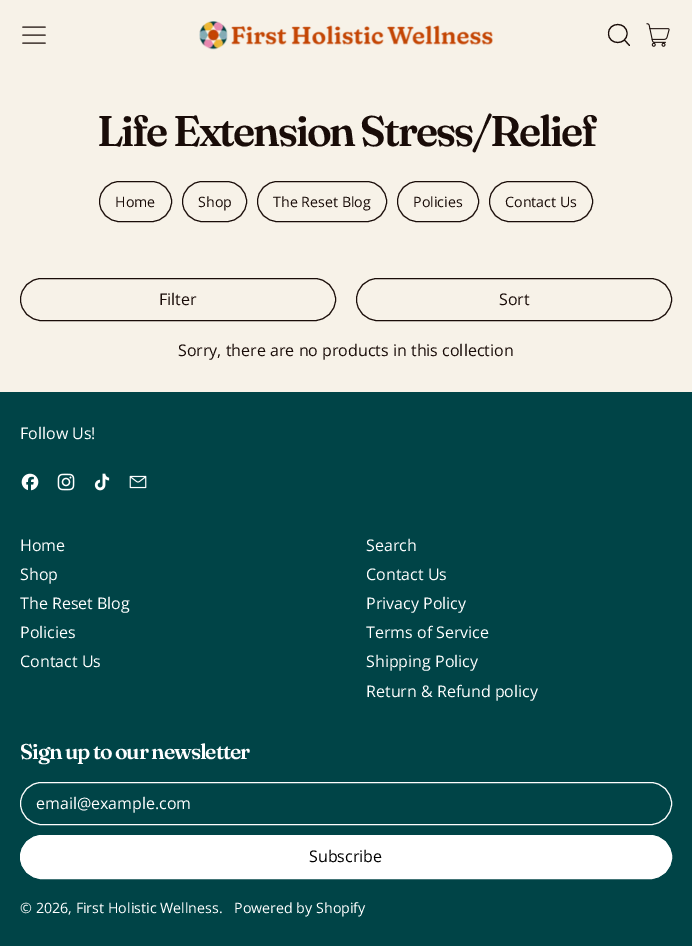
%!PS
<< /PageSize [692 946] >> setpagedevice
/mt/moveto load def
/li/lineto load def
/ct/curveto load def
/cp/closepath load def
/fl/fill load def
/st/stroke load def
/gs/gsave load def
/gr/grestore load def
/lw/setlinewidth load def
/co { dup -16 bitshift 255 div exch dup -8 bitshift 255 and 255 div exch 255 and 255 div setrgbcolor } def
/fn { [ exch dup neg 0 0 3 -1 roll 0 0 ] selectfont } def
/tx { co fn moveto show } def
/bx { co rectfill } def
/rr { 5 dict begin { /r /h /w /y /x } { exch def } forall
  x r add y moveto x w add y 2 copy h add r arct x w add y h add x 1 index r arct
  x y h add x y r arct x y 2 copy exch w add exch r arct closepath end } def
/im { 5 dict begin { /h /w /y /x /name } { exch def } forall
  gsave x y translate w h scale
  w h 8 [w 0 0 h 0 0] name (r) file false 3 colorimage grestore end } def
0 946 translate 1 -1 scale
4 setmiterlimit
0 0 692 946 16#F7F2E8 bx
16#190C08 co
1.1 lw
1 setlinecap
1 setlinejoin
45 43 mt 23 43 li 45 35 mt 23 35 li 45 27 mt 23 27 li st
(media/1.raw) 199 21 294 29 im
608.5 33.5 mt 608.5 45.5 627 45.5 627 33.5 ct 627 21.5 608.5 21.5 608.5 33.5 ct cp 629.5 45.5 mt 624.5 40 li st
(media/2.raw) 646 23 24 24 im
1 lw
0 setlinecap
0 setlinejoin
99.5 181.5 72 40 20 rr st
182.5 181.5 64 40 20 rr st
257.5 181.5 129 40 20 rr st
397.5 181.5 81 40 20 rr st
489.5 181.5 103 40 20 rr st
20.5 278.5 315 42 21 rr st
356.5 278.5 315 42 21 rr st
0 392 692 554 16#004447 bx
(media/3.raw) 21 473 18 18 im
(media/4.raw) 57 473 18 18 im
(media/5.raw) 94 473 16 18 im
(media/6.raw) 129 475 18 14 im
16#FFFFFF co
20.5 782.5 651 42 21 rr st
20.5 835.5 651 43 21.5 rr gs fl gr
st
/Fraunces-SemiBold 42.75 fn
16#190C08 co
97 146 mt -2.15 0 (Life Extension Stress/Relief) ashow
(Home) 115 207 /OpenSans-Regular 14.25 16#190C08 tx
(Shop) 198 207 /OpenSans-Regular 14.25 16#190C08 tx
(The Reset Blog) 273 207 /OpenSans-Regular 14.25 16#190C08 tx
(Policies) 413 207 /OpenSans-Regular 14.25 16#190C08 tx
(Contact Us) 505 207 /OpenSans-Regular 14.25 16#190C08 tx
(Filter) 159 305 /OpenSans-Regular 16 16#190C08 tx
(Sort) 499 305 /OpenSans-Regular 16 16#190C08 tx
(Sorry, there are no products in this collection) 178 356 /OpenSans-Regular 16 16#190C08 tx
(Follow Us!) 20 439 /OpenSans-Regular 16 16#FFFFFF tx
(Home) 20 551 /OpenSans-Regular 16 16#FFFFFF tx
(Shop) 20 580 /OpenSans-Regular 16 16#FFFFFF tx
(The Reset Blog) 20 609 /OpenSans-Regular 16 16#FFFFFF tx
(Policies) 20 638 /OpenSans-Regular 16 16#FFFFFF tx
(Contact Us) 20 667 /OpenSans-Regular 16 16#FFFFFF tx
(Search) 366 551 /OpenSans-Regular 16 16#FFFFFF tx
(Contact Us) 366 580 /OpenSans-Regular 16 16#FFFFFF tx
(Privacy Policy) 366 609 /OpenSans-Regular 16 16#FFFFFF tx
(Terms of Service) 366 638 /OpenSans-Regular 16 16#FFFFFF tx
(Shipping Policy) 366 667 /OpenSans-Regular 16 16#FFFFFF tx
(Return & Refund policy) 366 697 /OpenSans-Regular 16 16#FFFFFF tx
/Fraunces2-SemiBold 21.4 fn
20 759 mt -1.1 0 (Sign up to our newsletter) ashow
(email@example.com) 36 809 /OpenSans-Regular 16 16#FFFFFF tx
(Subscribe) 309 862 /OpenSans-Regular 16 16#000000 tx
(© 2026, First Holistic Wellness.) 20 913 /OpenSans-Regular 14.25 16#FFFFFF tx
(Powered by Shopify) 234 913 /OpenSans-Regular 14.25 16#FFFFFF tx
showpage
